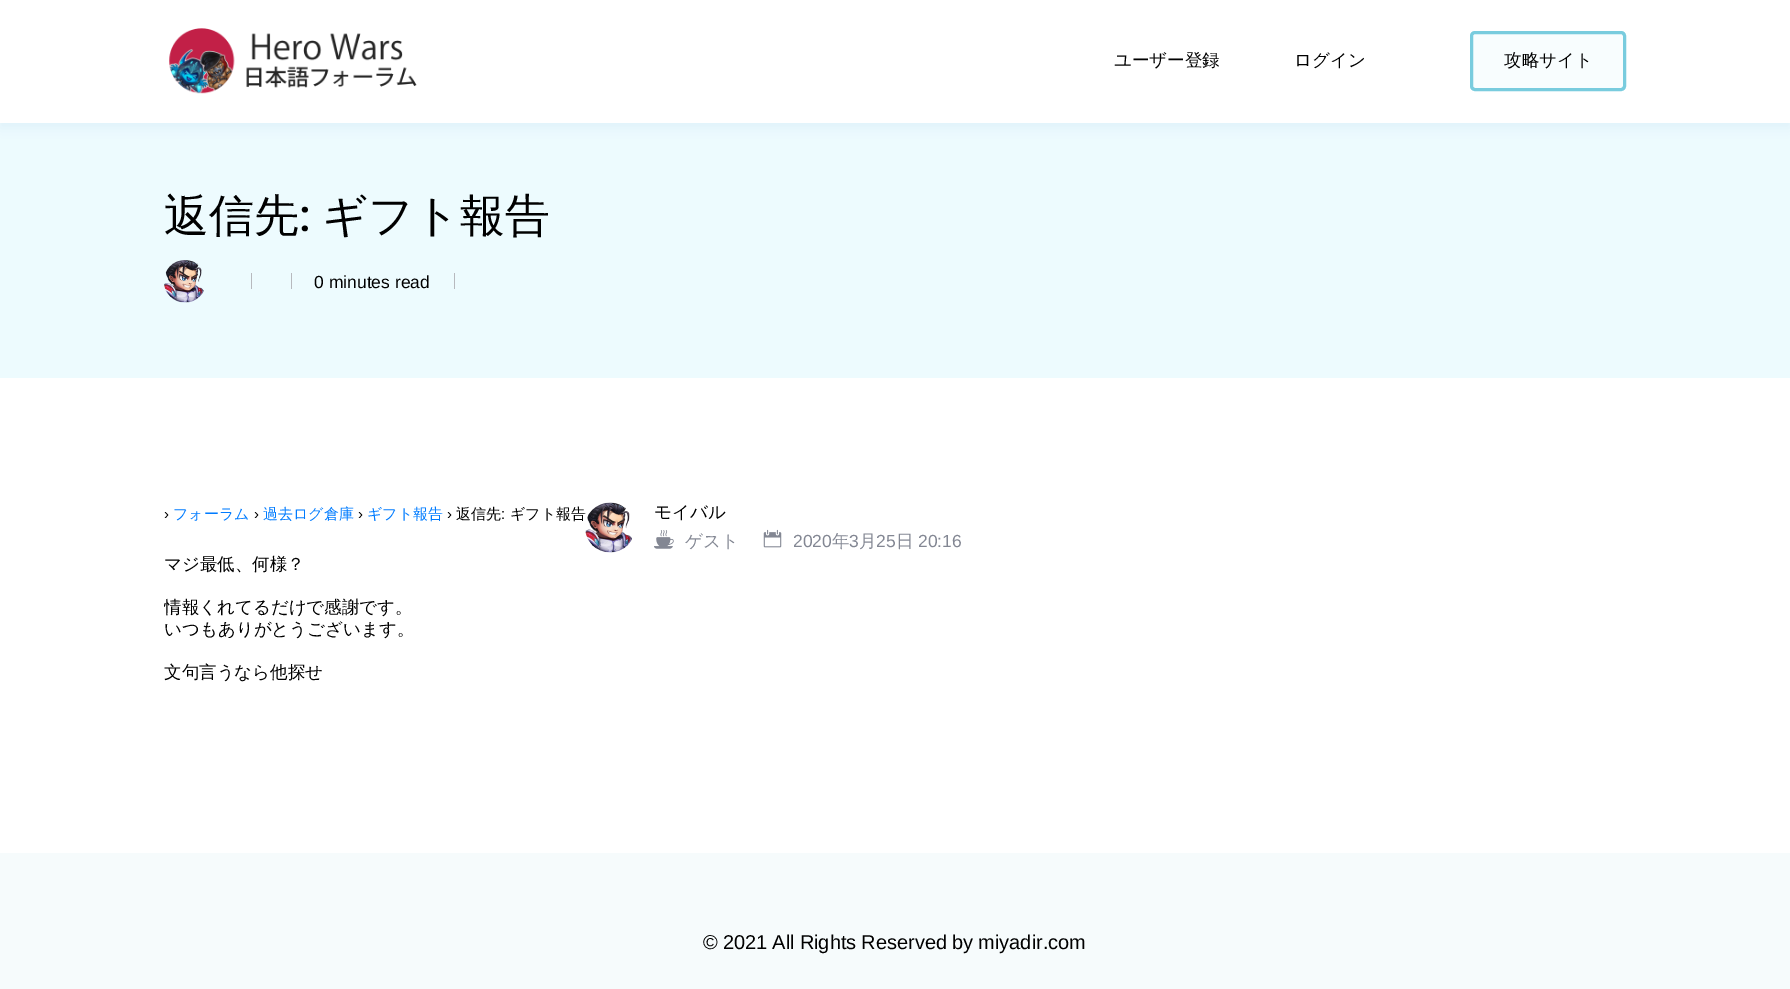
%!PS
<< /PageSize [1790 989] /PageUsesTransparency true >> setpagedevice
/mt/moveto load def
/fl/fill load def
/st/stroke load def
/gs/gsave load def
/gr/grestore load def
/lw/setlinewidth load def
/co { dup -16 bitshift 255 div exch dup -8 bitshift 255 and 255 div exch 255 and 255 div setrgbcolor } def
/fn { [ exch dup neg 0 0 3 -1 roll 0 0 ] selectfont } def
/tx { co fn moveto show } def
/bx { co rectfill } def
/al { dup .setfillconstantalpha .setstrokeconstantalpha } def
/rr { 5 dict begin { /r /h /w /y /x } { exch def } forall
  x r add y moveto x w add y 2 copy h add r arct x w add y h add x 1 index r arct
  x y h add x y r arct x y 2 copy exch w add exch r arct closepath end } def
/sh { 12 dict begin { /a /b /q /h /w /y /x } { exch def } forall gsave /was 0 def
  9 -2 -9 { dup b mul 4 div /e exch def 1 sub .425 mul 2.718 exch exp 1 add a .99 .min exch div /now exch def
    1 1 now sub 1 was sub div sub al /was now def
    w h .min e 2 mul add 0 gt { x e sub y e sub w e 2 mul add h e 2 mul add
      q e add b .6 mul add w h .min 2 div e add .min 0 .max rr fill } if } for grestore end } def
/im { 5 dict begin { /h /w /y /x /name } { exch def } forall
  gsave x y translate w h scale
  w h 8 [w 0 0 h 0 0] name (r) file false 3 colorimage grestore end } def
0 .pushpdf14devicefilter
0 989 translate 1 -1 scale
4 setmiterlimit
0 0 1790 989 16#FFFFFF bx
0 123 1790 255 16#EDFBFE bx
16#0C768E co
0 5 1790 123 0 6 .06 sh
0 0 1790 123 16#FFFFFF bx
(media/1.raw) 169 28 248 66 im
16#F8FDFE co
1471.5 32.5 153 57 3.5 rr gs fl gr
16#79CCDE co
3 lw
st
(media/2.raw) 164 260 40 43 im
251 273 1 16 16#B7B9BE bx
291 273 1 16 16#B7B9BE bx
454 273 1 16 16#B7B9BE bx
(media/3.raw) 585 502 47 51 im
(media/4.raw) 654 530 20 19 im
(media/5.raw) 763 529 19 19 im
0 853 1790 136 16#F6FBFC bx
(ユーザー登録) 1114 66 /WenQuanYiZenHei-Medium 17.5 16#000000 tx
(ログイン) 1294 66 /WenQuanYiZenHei-Medium 17.5 16#000000 tx
(攻略サイト) 1504 66 /WenQuanYiZenHei-Medium 17.5 16#000000 tx
(返信先) 164 231 /WenQuanYiZenHei-Medium 45 16#000000 tx
(:) 299 231 /Roboto-Medium 45 16#000000 tx
(ギフト報告) 322 231 /WenQuanYiZenHei-Medium 45 16#000000 tx
(0 minutes read) 314 288 /LiberationSans-Regular 17.5 16#000000 tx
(モイバル) 654 518 /WenQuanYiZenHei-Medium 17.5 16#000000 tx
(ゲスト) 685 547 /WenQuanYiZenHei-Medium 17.5 16#838793 tx
(2020) 793 547 /LiberationSans-Regular 17.5 16#838793 tx
(年) 832 547 /WenQuanYiZenHei-Medium 17.5 16#838793 tx
(3) 849 547 /LiberationSans-Regular 17.5 16#838793 tx
(月) 859 547 /WenQuanYiZenHei-Medium 17.5 16#838793 tx
(25) 876 547 /LiberationSans-Regular 17.5 16#838793 tx
(日) 896 547 /WenQuanYiZenHei-Medium 17.5 16#838793 tx
(20:16) 918 547 /LiberationSans-Regular 17.5 16#838793 tx
(マジ最低、何様？) 164 570 /WenQuanYiZenHei-Medium 17.5 16#000000 tx
gs
164 503 1462 200 rectclip
(情報くれてるだけで感謝です。) 164 613 /WenQuanYiZenHei-Medium 17.5 16#000000 tx
gr
(いつもありがとうございます。) 164 635 /WenQuanYiZenHei-Medium 17.5 16#000000 tx
(文句言うなら他探せ) 164 678 /WenQuanYiZenHei-Medium 17.5 16#000000 tx
(›) 164 519 /LiberationSans-Regular 15 16#000000 tx
(フォーラム) 173 519 /WenQuanYiZenHei-Medium 15 16#007BFF tx
(›) 254 519 /LiberationSans-Regular 15 16#000000 tx
(過去ログ倉庫) 263 519 /WenQuanYiZenHei-Medium 15 16#007BFF tx
(›) 358 519 /LiberationSans-Regular 15 16#000000 tx
(ギフト報告) 367 519 /WenQuanYiZenHei-Medium 15 16#007BFF tx
(›) 447 519 /LiberationSans-Regular 15 16#000000 tx
(返信先) 456 519 /WenQuanYiZenHei-Medium 15 16#000000 tx
(:) 501 519 /LiberationSans-Regular 15 16#000000 tx
(ギフト報告) 510 519 /WenQuanYiZenHei-Medium 15 16#000000 tx
/LiberationSans-Regular 20 fn
703 949 mt -.5 0 32 (© 2021 All Rights Reserved by miyadir.com) widthshow
.poppdf14devicefilter showpage
